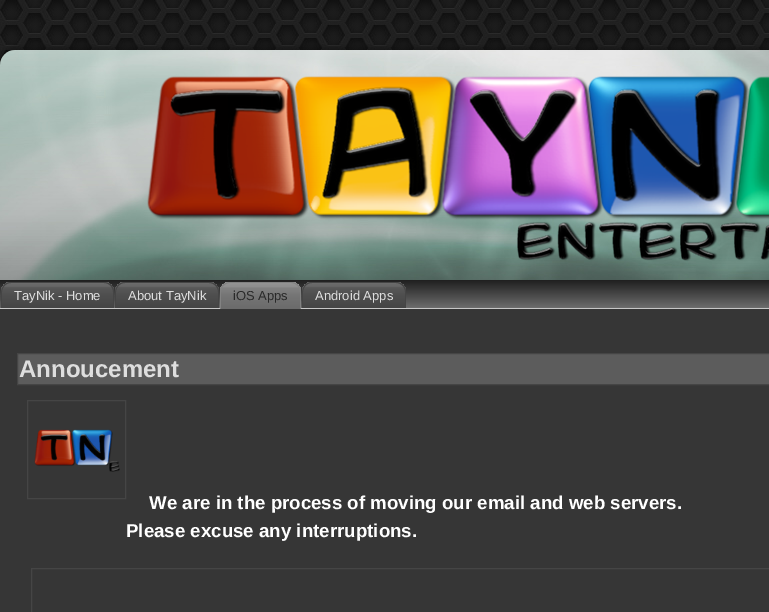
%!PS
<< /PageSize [769 612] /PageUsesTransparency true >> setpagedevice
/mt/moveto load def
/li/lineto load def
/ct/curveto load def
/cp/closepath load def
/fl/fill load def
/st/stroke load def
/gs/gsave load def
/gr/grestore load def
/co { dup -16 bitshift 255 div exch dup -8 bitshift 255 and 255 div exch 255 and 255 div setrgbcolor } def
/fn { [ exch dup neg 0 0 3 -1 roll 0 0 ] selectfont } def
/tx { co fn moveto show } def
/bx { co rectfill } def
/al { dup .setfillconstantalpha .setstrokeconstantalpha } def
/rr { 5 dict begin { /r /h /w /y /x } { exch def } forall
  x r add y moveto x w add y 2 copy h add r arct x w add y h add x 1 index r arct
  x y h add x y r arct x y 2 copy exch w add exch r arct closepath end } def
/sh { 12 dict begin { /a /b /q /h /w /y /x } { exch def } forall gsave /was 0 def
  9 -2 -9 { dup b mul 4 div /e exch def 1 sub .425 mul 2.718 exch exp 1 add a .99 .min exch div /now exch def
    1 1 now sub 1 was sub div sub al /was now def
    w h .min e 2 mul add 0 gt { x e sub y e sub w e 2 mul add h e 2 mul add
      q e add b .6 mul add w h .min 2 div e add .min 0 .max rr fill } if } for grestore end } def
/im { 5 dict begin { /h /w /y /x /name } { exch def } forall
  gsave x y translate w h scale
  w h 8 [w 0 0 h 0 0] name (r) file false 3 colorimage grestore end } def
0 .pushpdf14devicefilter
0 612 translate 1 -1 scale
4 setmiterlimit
0 0 769 612 16#FFFFFF bx
(media/1.raw) 0 0 769 65 im
16#000000 co
-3 47 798 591 18 2.5 .3 sh
16#363636 co
0 50 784 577 15 rr fl
(media/2.raw) 0 50 769 230 im
gs 0 280 mt 769 280 li 769 308 li 0 308 li cp clip newpath
<< /ShadingType 2 /ColorSpace /DeviceRGB /Coords [600 280 600 309] /Extend [true true] /Function << /FunctionType 2 /Domain [0 1] /C0 [.122 .122 .122] /C1 [.439 .439 .439] /N 1 >> >> shfill gr
0 308 769 1 16#C7C7C7 bx
gs 11 282 mt 104 282 li 109.5 282 114 286.5 114 292 ct 114 308 li 1 308 li 1 292 li 1 286.5 5.5 282 11 282 ct cp clip newpath
<< /ShadingType 2 /ColorSpace /DeviceRGB /Coords [58 282 58 308] /Extend [true true] /Function << /FunctionType 3 /Domain [0 1] /Functions [<< /FunctionType 2 /Domain [0 1] /C0 [.431 .431 .431] /C1 [.412 .412 .412] /N 1 >> << /FunctionType 2 /Domain [0 1] /C0 [.412 .412 .412] /C1 [.388 .388 .388] /N 1 >> << /FunctionType 2 /Domain [0 1] /C0 [.349 .349 .349] /C1 [.31 .31 .31] /N 1 >> << /FunctionType 2 /Domain [0 1] /C0 [.31 .31 .31] /C1 [.271 .271 .271] /N 1 >>] /Bounds [.1 .2 .5] /Encode [0 1 0 1 0 1 0 1] >> >> shfill gr
16#454545 co
11 282 mt 104 282 li 110 282 114 286 114 292 ct 114 308 li 1 308 li 1 300 -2 282 11 282 ct cp 11 283 mt 104 283 li 109 283 113 287 113 292 ct 113 308 li 2 308 li 2 292 li 2 287 6 283 11 283 ct cp eofill
gs 125 282 mt 209 282 li 214.5 282 219 286.5 219 292 ct 219 308 li 115 308 li 115 292 li 115 286.5 119.5 282 125 282 ct cp clip newpath
<< /ShadingType 2 /ColorSpace /DeviceRGB /Coords [167 282 167 308] /Extend [true true] /Function << /FunctionType 3 /Domain [0 1] /Functions [<< /FunctionType 2 /Domain [0 1] /C0 [.431 .431 .431] /C1 [.412 .412 .412] /N 1 >> << /FunctionType 2 /Domain [0 1] /C0 [.412 .412 .412] /C1 [.388 .388 .388] /N 1 >> << /FunctionType 2 /Domain [0 1] /C0 [.349 .349 .349] /C1 [.31 .31 .31] /N 1 >> << /FunctionType 2 /Domain [0 1] /C0 [.31 .31 .31] /C1 [.271 .271 .271] /N 1 >>] /Bounds [.1 .2 .5] /Encode [0 1 0 1 0 1 0 1] >> >> shfill gr
125 282 mt 209 282 li 215 282 219 286 219 292 ct 219 308 li 115 308 li 115 300 112 282 125 282 ct cp 125 283 mt 209 283 li 214 283 218 287 218 292 ct 218 308 li 116 308 li 116 292 li 116 287 120 283 125 283 ct cp eofill
gs 230 282 mt 291 282 li 296.5 282 301 286.5 301 292 ct 301 309 li 220 309 li 220 292 li 220 286.5 224.5 282 230 282 ct cp clip newpath
<< /ShadingType 2 /ColorSpace /DeviceRGB /Coords [261 282 261 309] /Extend [true true] /Function << /FunctionType 3 /Domain [0 1] /Functions [<< /FunctionType 2 /Domain [0 1] /C0 [.588 .588 .588] /C1 [.569 .569 .569] /N 1 >> << /FunctionType 2 /Domain [0 1] /C0 [.569 .569 .569] /C1 [.549 .549 .549] /N 1 >> << /FunctionType 2 /Domain [0 1] /C0 [.51 .51 .51] /C1 [.502 .502 .502] /N 1 >> << /FunctionType 2 /Domain [0 1] /C0 [.502 .502 .502] /C1 [.459 .459 .459] /N 1 >> << /FunctionType 2 /Domain [0 1] /C0 [.459 .459 .459] /C1 [.42 .42 .42] /N 1 >>] /Bounds [.1 .2 .26 .5] /Encode [0 1 0 1 0 1 0 1 0 1] >> >> shfill gr
16#828282 co
230 282 mt 291 282 li 297 282 301 286 301 292 ct 301 309 li 220 309 li 220 292 li 220 286 224 282 230 282 ct cp 230 283 mt 291 283 li 296 283 300 287 300 292 ct 300 309 li 221 309 li 221 292 li 221 287 225 283 230 283 ct cp eofill
gs 312 282 mt 396 282 li 401.5 282 406 286.5 406 292 ct 406 308 li 302 308 li 302 292 li 302 286.5 306.5 282 312 282 ct cp clip newpath
<< /ShadingType 2 /ColorSpace /DeviceRGB /Coords [354 282 354 308] /Extend [true true] /Function << /FunctionType 3 /Domain [0 1] /Functions [<< /FunctionType 2 /Domain [0 1] /C0 [.431 .431 .431] /C1 [.412 .412 .412] /N 1 >> << /FunctionType 2 /Domain [0 1] /C0 [.412 .412 .412] /C1 [.388 .388 .388] /N 1 >> << /FunctionType 2 /Domain [0 1] /C0 [.349 .349 .349] /C1 [.31 .31 .31] /N 1 >> << /FunctionType 2 /Domain [0 1] /C0 [.31 .31 .31] /C1 [.271 .271 .271] /N 1 >>] /Bounds [.1 .2 .5] /Encode [0 1 0 1 0 1 0 1] >> >> shfill gr
16#454545 co
312 282 mt 396 282 li 402 282 406 286 406 292 ct 406 308 li 302 308 li 302 300 299 282 312 282 ct cp 312 283 mt 396 283 li 401 283 405 287 405 292 ct 405 308 li 303 308 li 303 292 li 303 287 307 283 312 283 ct cp eofill
16#5C5C5C co
17.5 353.5 mt 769.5 353.5 li 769.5 384.5 li 17.5 384.5 li cp gs fl gr
16#454545 co
st
27.5 400.5 98 98 rectstroke
(media/3.raw) 34 429 86 43 im
31.5 568.5 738 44 rectstroke
(TayNik - Home) 14 300 /LiberationSans-Regular 13 16#DEDEDE tx
(About TayNik) 128 300 /LiberationSans-Regular 13 16#DEDEDE tx
(iOS Apps) 233 300 /LiberationSans-Regular 13 16#292929 tx
(Android Apps) 315 300 /LiberationSans-Regular 13 16#DEDEDE tx
(Annoucement) 19 377 /LiberationSans-Bold 24 16#DEDEDE tx
(We are in the process of moving our email and web servers.) 149 509 /LiberationSans-Bold 18.7 16#FFFFFF tx
(Please excuse any interruptions.) 126 537 /LiberationSans-Bold 18.7 16#FFFFFF tx
.poppdf14devicefilter showpage
